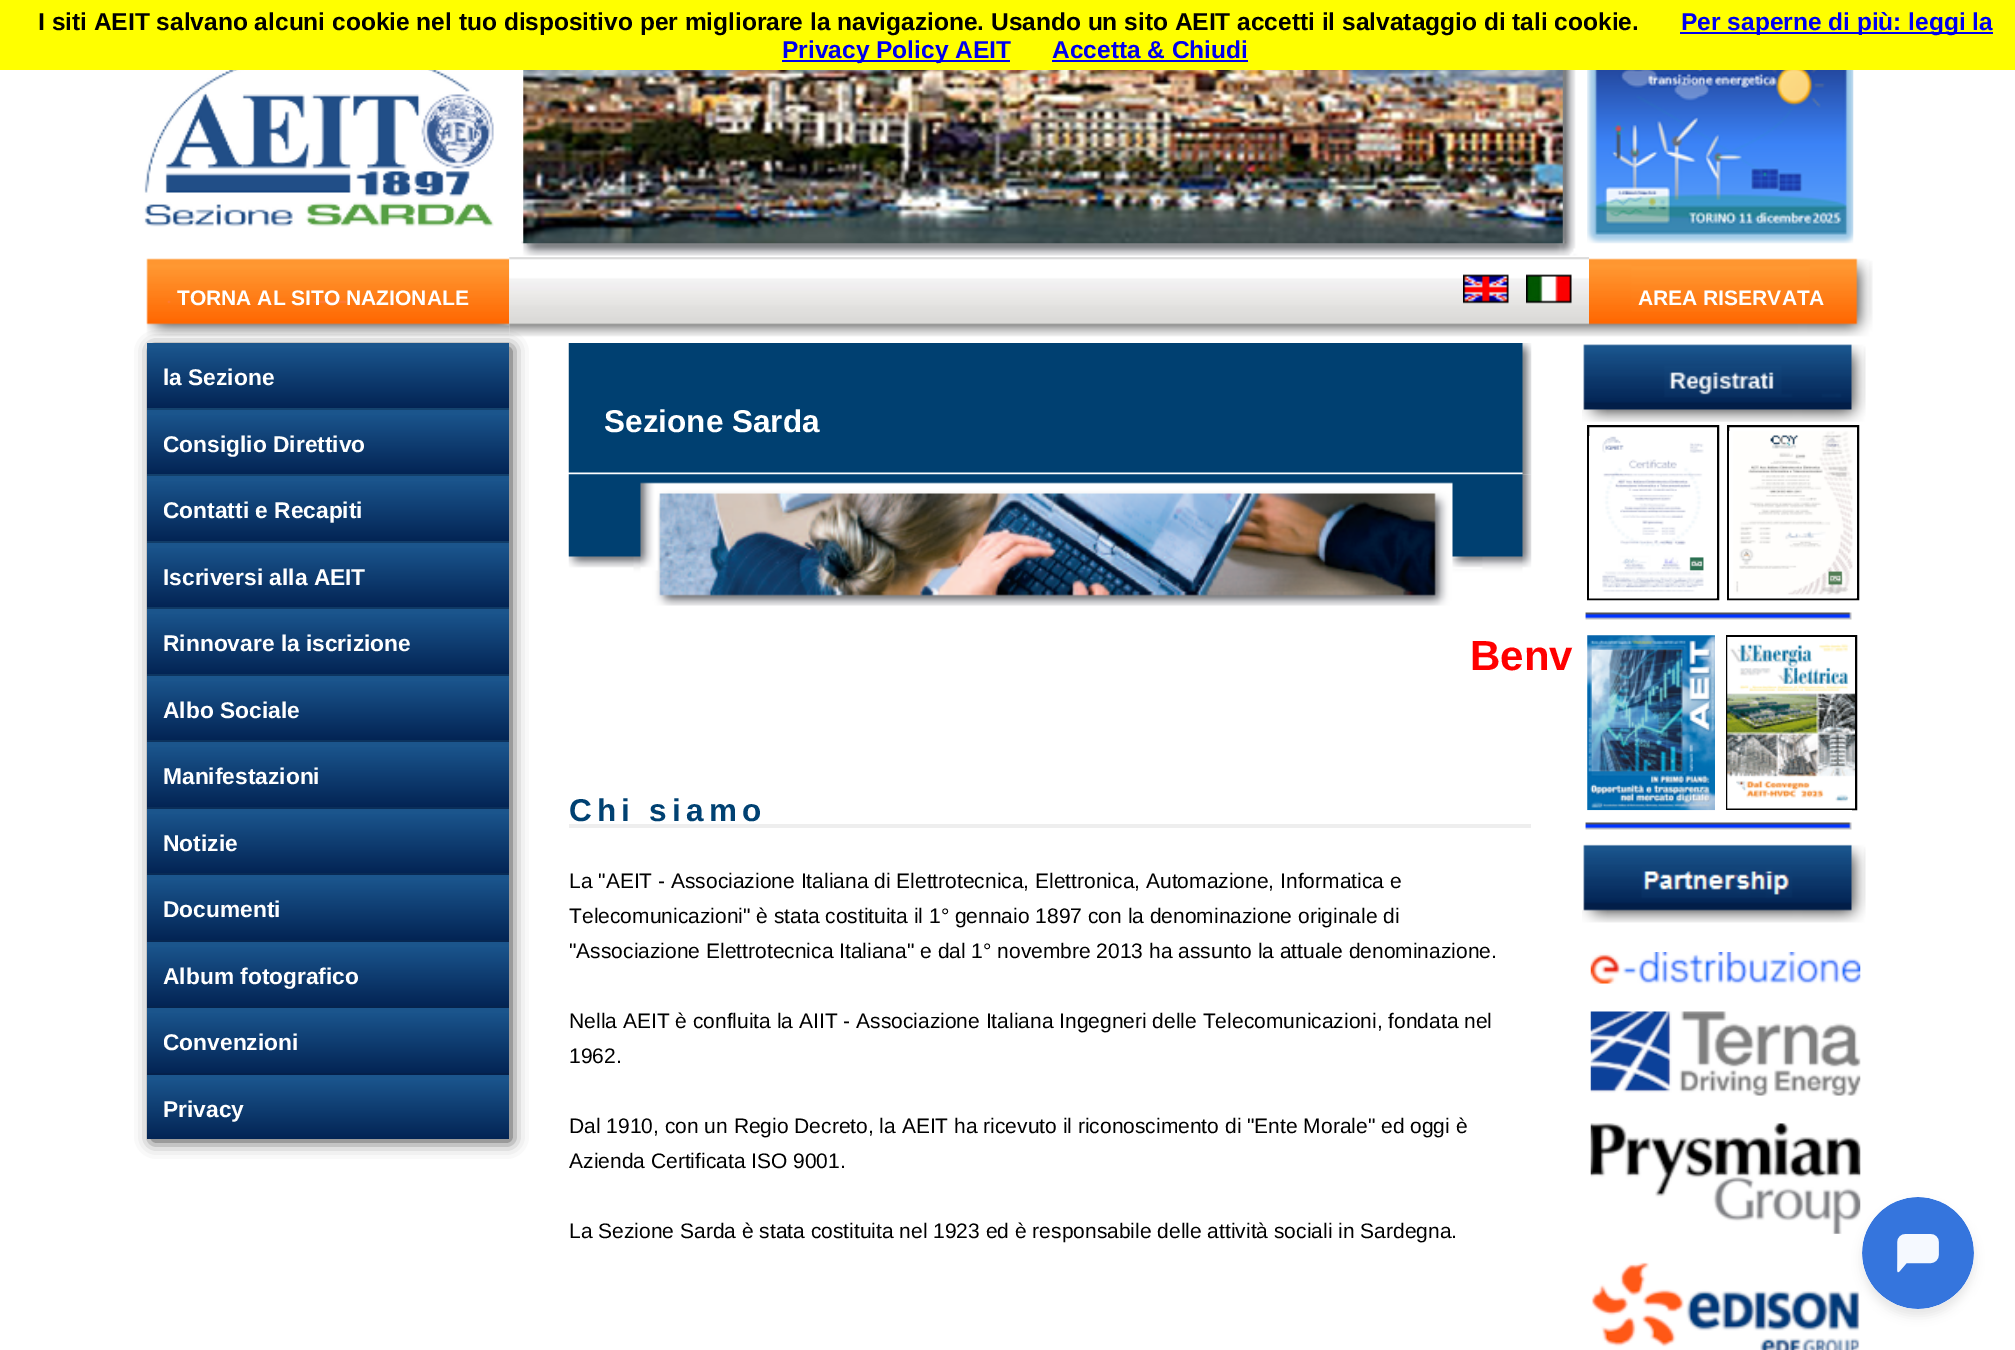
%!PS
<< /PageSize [2015 1350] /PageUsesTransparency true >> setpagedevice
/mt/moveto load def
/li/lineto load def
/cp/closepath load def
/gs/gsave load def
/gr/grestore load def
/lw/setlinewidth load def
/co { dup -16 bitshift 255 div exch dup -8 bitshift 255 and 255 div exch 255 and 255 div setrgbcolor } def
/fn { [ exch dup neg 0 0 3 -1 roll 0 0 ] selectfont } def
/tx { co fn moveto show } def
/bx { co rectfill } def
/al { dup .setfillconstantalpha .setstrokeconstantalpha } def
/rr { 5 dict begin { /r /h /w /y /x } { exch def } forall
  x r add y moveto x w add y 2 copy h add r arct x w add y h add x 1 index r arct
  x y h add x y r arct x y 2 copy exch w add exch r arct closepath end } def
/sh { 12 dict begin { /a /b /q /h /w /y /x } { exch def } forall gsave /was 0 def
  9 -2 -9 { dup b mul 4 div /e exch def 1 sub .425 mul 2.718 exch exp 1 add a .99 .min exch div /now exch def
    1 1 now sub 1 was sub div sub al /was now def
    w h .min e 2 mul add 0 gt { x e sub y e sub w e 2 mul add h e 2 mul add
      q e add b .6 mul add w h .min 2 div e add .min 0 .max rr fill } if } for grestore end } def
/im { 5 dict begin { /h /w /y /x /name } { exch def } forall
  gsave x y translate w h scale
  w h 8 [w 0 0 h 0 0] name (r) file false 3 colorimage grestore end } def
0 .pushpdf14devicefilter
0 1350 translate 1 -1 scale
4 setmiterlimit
0 0 2015 1350 16#FFFFFF bx
0 0 2015 70 16#FFFF00 bx
1680 32 313 2 16#0000EE bx
782 60 228 2 16#0000EE bx
1052 60 196 2 16#0000EE bx
(media/1.raw) 144 70 350 157 im
(media/2.raw) 521 70 1059 186 im
(media/3.raw) 523 70 1040 174 im
(media/4.raw) 1587 70 267 174 im
(media/5.raw) 146 258 364 79 im
(media/6.raw) 509 257 1080 80 im
(media/7.raw) 1463 274 46 30 im
(media/8.raw) 1526 274 46 30 im
(media/9.raw) 1589 258 284 79 im
16#333333 co
152 348 359 793 0 8 1 sh
gs 147 408 mt 509 408 li 509 1075 li 147 1075 li cp clip newpath
<< /ShadingType 2 /ColorSpace /DeviceRGB /Coords [328 343 328 1139] /Extend [true true] /Function << /FunctionType 2 /Domain [0 1] /C0 [.09 .278 .451] /C1 [.008 .118 .282] /N 1 >> >> shfill gr
gs 147 348 mt 509 348 li 509 408 li 147 408 li cp clip newpath
<< /ShadingType 2 /ColorSpace /DeviceRGB /Coords [328 348 328 408] /Extend [true true] /Function << /FunctionType 2 /Domain [0 1] /C0 [.102 .329 .549] /C1 [.012 .141 .329] /N 1 >> >> shfill gr
147 343 362 5 16#1B558C bx
gs 147 415 mt 509 415 li 509 474 li 147 474 li cp clip newpath
<< /ShadingType 2 /ColorSpace /DeviceRGB /Coords [328 415 328 474] /Extend [true true] /Function << /FunctionType 2 /Domain [0 1] /C0 [.102 .329 .549] /C1 [.012 .141 .329] /N 1 >> >> shfill gr
147 410 362 5 16#1B558C bx
gs 147 481 mt 509 481 li 509 541 li 147 541 li cp clip newpath
<< /ShadingType 2 /ColorSpace /DeviceRGB /Coords [328 481 328 541] /Extend [true true] /Function << /FunctionType 2 /Domain [0 1] /C0 [.102 .329 .549] /C1 [.012 .141 .329] /N 1 >> >> shfill gr
147 476 362 5 16#1B558C bx
gs 147 548 mt 509 548 li 509 607 li 147 607 li cp clip newpath
<< /ShadingType 2 /ColorSpace /DeviceRGB /Coords [328 548 328 607] /Extend [true true] /Function << /FunctionType 2 /Domain [0 1] /C0 [.102 .329 .549] /C1 [.012 .141 .329] /N 1 >> >> shfill gr
147 543 362 5 16#1B558C bx
gs 147 614 mt 509 614 li 509 674 li 147 674 li cp clip newpath
<< /ShadingType 2 /ColorSpace /DeviceRGB /Coords [328 614 328 674] /Extend [true true] /Function << /FunctionType 2 /Domain [0 1] /C0 [.102 .329 .549] /C1 [.012 .141 .329] /N 1 >> >> shfill gr
147 609 362 5 16#1B558C bx
gs 147 681 mt 509 681 li 509 740 li 147 740 li cp clip newpath
<< /ShadingType 2 /ColorSpace /DeviceRGB /Coords [328 681 328 740] /Extend [true true] /Function << /FunctionType 2 /Domain [0 1] /C0 [.102 .329 .549] /C1 [.012 .141 .329] /N 1 >> >> shfill gr
147 676 362 5 16#1B558C bx
gs 147 747 mt 509 747 li 509 807 li 147 807 li cp clip newpath
<< /ShadingType 2 /ColorSpace /DeviceRGB /Coords [328 747 328 807] /Extend [true true] /Function << /FunctionType 2 /Domain [0 1] /C0 [.102 .329 .549] /C1 [.012 .141 .329] /N 1 >> >> shfill gr
147 742 362 5 16#1B558C bx
gs 147 814 mt 509 814 li 509 873 li 147 873 li cp clip newpath
<< /ShadingType 2 /ColorSpace /DeviceRGB /Coords [328 814 328 873] /Extend [true true] /Function << /FunctionType 2 /Domain [0 1] /C0 [.102 .329 .549] /C1 [.012 .141 .329] /N 1 >> >> shfill gr
147 809 362 5 16#1B558C bx
gs 147 880 mt 509 880 li 509 940 li 147 940 li cp clip newpath
<< /ShadingType 2 /ColorSpace /DeviceRGB /Coords [328 880 328 940] /Extend [true true] /Function << /FunctionType 2 /Domain [0 1] /C0 [.102 .329 .549] /C1 [.012 .141 .329] /N 1 >> >> shfill gr
147 875 362 5 16#1B558C bx
gs 147 947 mt 509 947 li 509 1006 li 147 1006 li cp clip newpath
<< /ShadingType 2 /ColorSpace /DeviceRGB /Coords [328 947 328 1006] /Extend [true true] /Function << /FunctionType 2 /Domain [0 1] /C0 [.102 .329 .549] /C1 [.012 .141 .329] /N 1 >> >> shfill gr
147 942 362 5 16#1B558C bx
gs 147 1013 mt 509 1013 li 509 1073 li 147 1073 li cp clip newpath
<< /ShadingType 2 /ColorSpace /DeviceRGB /Coords [328 1013 328 1073] /Extend [true true] /Function << /FunctionType 2 /Domain [0 1] /C0 [.102 .329 .549] /C1 [.012 .141 .329] /N 1 >> >> shfill gr
147 1008 362 5 16#1B558C bx
gs 147 1080 mt 509 1080 li 509 1139 li 147 1139 li cp clip newpath
<< /ShadingType 2 /ColorSpace /DeviceRGB /Coords [328 1080 328 1139] /Extend [true true] /Function << /FunctionType 2 /Domain [0 1] /C0 [.102 .329 .549] /C1 [.012 .141 .329] /N 1 >> >> shfill gr
147 1075 362 5 16#1B558C bx
(media/10.raw) 568 343 964 132 im
(media/11.raw) 568 474 964 132 im
569 824 962 4 16#EEEEEE bx
(media/12.raw) 1582 344 284 78 im
16#000000 co
2 lw
1588 426 130 173 rectstroke
(media/13.raw) 1589 436 128 163 im
1728 426 130 173 rectstroke
(media/14.raw) 1729 431 128 168 im
(media/15.raw) 1585 612 267 8 im
(media/16.raw) 1587 635 128 176 im
1727 636 129 173 rectstroke
(media/17.raw) 1727 637 128 172 im
(media/18.raw) 1585 810 267 20 im
(media/19.raw) 1582 844 284 79 im
(media/20.raw) 1590 952 271 32 im
(media/21.raw) 1590 1011 271 85 im
(media/22.raw) 1590 1123 271 111 im
(media/23.raw) 1591 1262 269 88 im
1862 1204 112 112 56 5 .1 sh
(media/24.raw) 1862 1197 112 112 im
(I siti AEIT salvano alcuni cookie nel tuo dispositivo per migliorare la navigazione. Usando un sito AEIT accetti il salvataggio di tali cookie.) 38 30 /LiberationSans-Bold 24.5 16#000000 tx
(Per saperne di più: leggi la) 1681 30 /LiberationSans-Bold 24.5 16#0000EE tx
(Privacy Policy AEIT) 782 58 /LiberationSans-Bold 24.5 16#0000EE tx
(Accetta & Chiudi) 1052 58 /LiberationSans-Bold 24.5 16#0000EE tx
(TORNA AL SITO NAZIONALE) 177 305 /LiberationSans-Bold 21 16#FFFFFF tx
(AREA RISERVATA) 1638 305 /LiberationSans-Bold 21 16#FFFFFF tx
(la Sezione) 163 385 /LiberationSans-Bold 22.75 16#FFFFFF tx
(Consiglio Direttivo) 163 452 /LiberationSans-Bold 22.75 16#FFFFFF tx
(Contatti e Recapiti) 163 518 /LiberationSans-Bold 22.75 16#FFFFFF tx
(Iscriversi alla AEIT) 163 585 /LiberationSans-Bold 22.75 16#FFFFFF tx
(Rinnovare la iscrizione) 163 651 /LiberationSans-Bold 22.75 16#FFFFFF tx
(Albo Sociale) 163 718 /LiberationSans-Bold 22.75 16#FFFFFF tx
(Manifestazioni) 163 784 /LiberationSans-Bold 22.75 16#FFFFFF tx
(Notizie) 163 851 /LiberationSans-Bold 22.75 16#FFFFFF tx
(Documenti) 163 917 /LiberationSans-Bold 22.75 16#FFFFFF tx
(Album fotografico) 163 984 /LiberationSans-Bold 22.75 16#FFFFFF tx
(Convenzioni) 163 1050 /LiberationSans-Bold 22.75 16#FFFFFF tx
(Privacy) 163 1117 /LiberationSans-Bold 22.75 16#FFFFFF tx
(Sezione Sarda) 604 432 /LiberationSans-Bold 31.5 16#FFFFFF tx
(Benv) 1470 670 /LiberationSans-Bold 42 16#FF0000 tx
/LiberationSans-Bold 31.5 fn
16#004172 co
569 821 mt 5.25 0 (Chi siamo) ashow
(La "AEIT - Associazione Italiana di Elettrotecnica, Elettronica, Automazione, Informatica e) 569 888 /LiberationSans-Regular 21 16#000000 tx
(Telecomunicazioni" è stata costituita il 1° gennaio 1897 con la denominazione originale di) 569 923 /LiberationSans-Regular 21 16#000000 tx
("Associazione Elettrotecnica Italiana" e dal 1° novembre 2013 ha assunto la attuale denominazione.) 569 958 /LiberationSans-Regular 21 16#000000 tx
(Nella AEIT è confluita la AIIT - Associazione Italiana Ingegneri delle Telecomunicazioni, fondata nel) 569 1028 /LiberationSans-Regular 21 16#000000 tx
(1962.) 569 1063 /LiberationSans-Regular 21 16#000000 tx
(Dal 1910, con un Regio Decreto, la AEIT ha ricevuto il riconoscimento di "Ente Morale" ed oggi è) 569 1133 /LiberationSans-Regular 21 16#000000 tx
(Azienda Certificata ISO 9001.) 569 1168 /LiberationSans-Regular 21 16#000000 tx
(La Sezione Sarda è stata costituita nel 1923 ed è responsabile delle attività sociali in Sardegna.) 569 1238 /LiberationSans-Regular 21 16#000000 tx
.poppdf14devicefilter showpage
